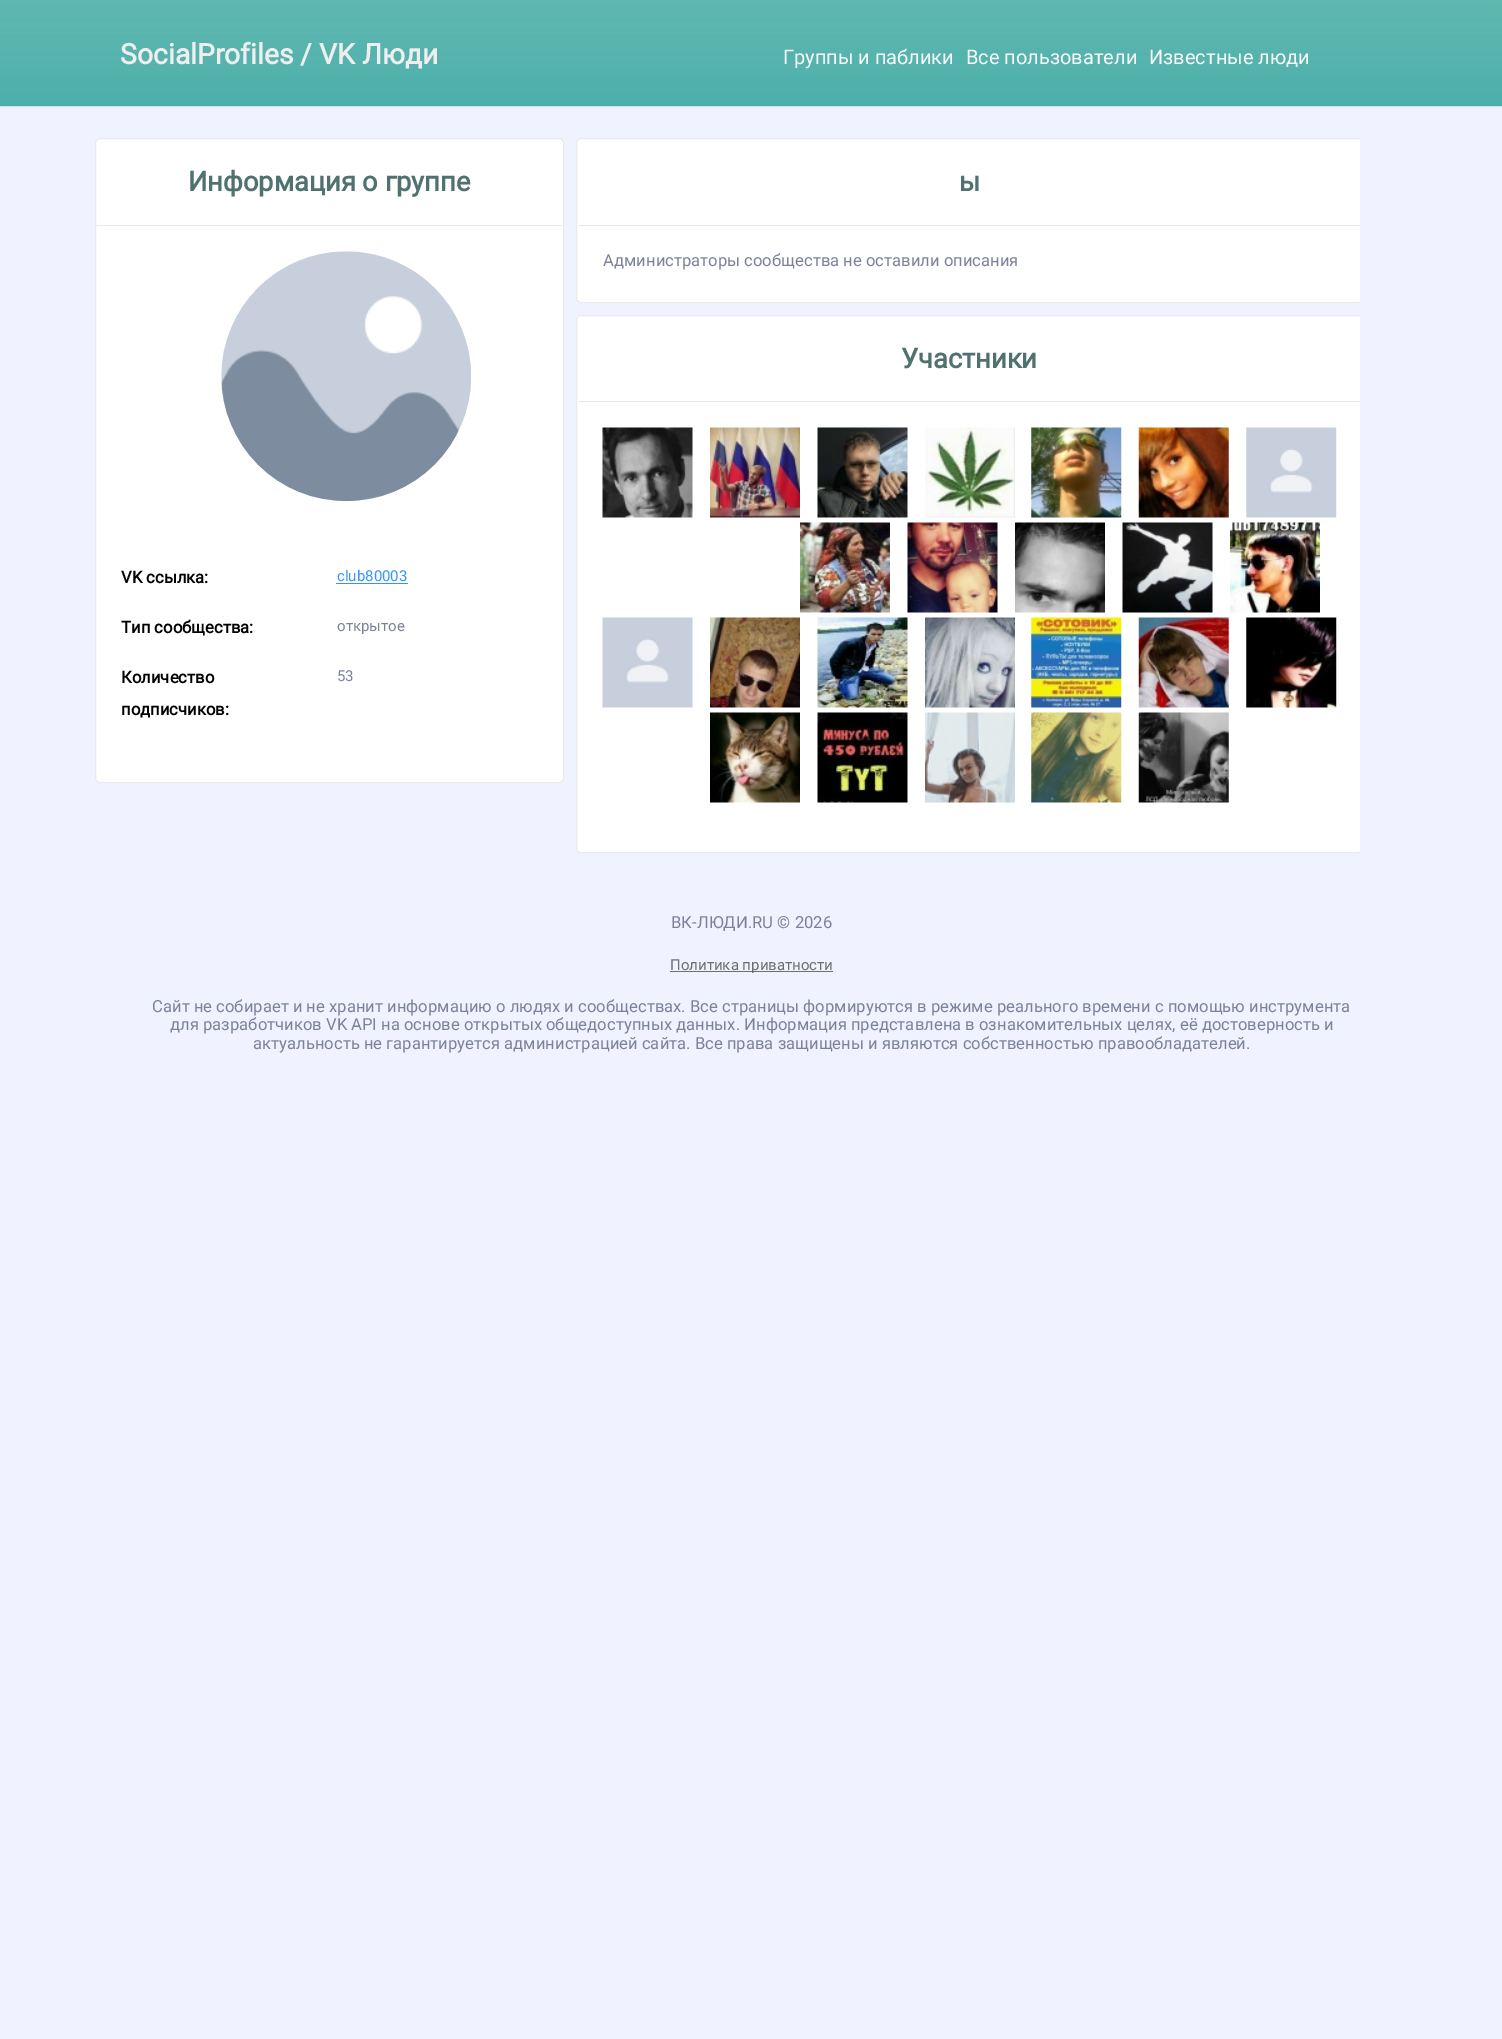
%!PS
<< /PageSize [1502 2039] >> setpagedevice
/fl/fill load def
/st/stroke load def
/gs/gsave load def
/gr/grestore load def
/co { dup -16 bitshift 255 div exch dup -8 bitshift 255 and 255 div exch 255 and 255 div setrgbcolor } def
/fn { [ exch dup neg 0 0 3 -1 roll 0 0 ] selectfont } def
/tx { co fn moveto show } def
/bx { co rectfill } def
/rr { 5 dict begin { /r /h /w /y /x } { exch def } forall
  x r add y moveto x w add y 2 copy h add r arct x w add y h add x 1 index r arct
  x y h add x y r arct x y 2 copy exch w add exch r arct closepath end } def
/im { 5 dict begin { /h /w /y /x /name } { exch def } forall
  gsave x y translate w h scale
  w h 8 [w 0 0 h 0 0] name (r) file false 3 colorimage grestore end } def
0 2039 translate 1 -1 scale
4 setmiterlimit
0 0 1502 2039 16#F0F2FF bx
(media/1.raw) 0 0 1502 107 im
16#FFFFFF co
95.5 138.5 468 644 4.5 rr gs fl gr
16#E9EAED co
st
96 225 467 1 16#E9EAED bx
(media/2.raw) 221 251 250 251 im
336 583 72 1 16#3694FC bx
gs
576 138 784 727 rectclip
16#FFFFFF co
576.5 138.5 786 164 4.5 rr gs fl gr
16#E9EAED co
st
gr
578 225 782 1 16#E9EAED bx
gs
576 138 784 727 rectclip
16#FFFFFF co
576.5 315.5 786 537 4.5 rr gs fl gr
16#E9EAED co
st
gr
578 401 782 1 16#E9EAED bx
(media/3.raw) 602 427 91 91 im
(media/4.raw) 710 427 90 91 im
(media/5.raw) 817 427 91 91 im
(media/6.raw) 925 427 90 91 im
(media/7.raw) 1031 427 91 91 im
(media/8.raw) 1138 427 91 91 im
(media/9.raw) 1246 427 91 91 im
(media/10.raw) 800 522 90 91 im
(media/11.raw) 907 522 91 91 im
(media/12.raw) 1015 522 90 91 im
(media/13.raw) 1122 522 91 91 im
(media/14.raw) 1230 522 90 91 im
(media/15.raw) 602 617 91 91 im
(media/16.raw) 710 617 90 91 im
(media/17.raw) 817 617 91 91 im
(media/18.raw) 925 617 90 91 im
(media/19.raw) 1031 617 91 91 im
(media/20.raw) 1138 617 91 91 im
(media/21.raw) 1246 617 91 91 im
(media/22.raw) 710 712 90 91 im
(media/23.raw) 817 712 91 91 im
(media/24.raw) 925 712 90 91 im
(media/25.raw) 1031 712 91 91 im
(media/26.raw) 1138 712 91 91 im
670 971 163 1 16#6E6E6E bx
(SocialProfiles / VK Люди) 120 64 /Roboto-Bold 28.25 16#EEEEEE tx
(Группы и паблики) 783 64 /Roboto-Regular 20 16#F8F9FA tx
(Все пользователи) 966 64 /Roboto-Regular 20 16#F8F9FA tx
(Известные люди) 1149 64 /Roboto-Regular 20 16#F8F9FA tx
(Информация о группе) 188 191 /Roboto-Bold 27.25 16#4F7270 tx
(VK ссылка:) 121 583 /Roboto-Bold 16.67 16#000000 tx
(club80003) 337 581 /Roboto-Regular 15 16#3694FC tx
(Тип сообщества:) 121 633 /Roboto-Bold 16.67 16#000000 tx
(открытое) 337 631 /Roboto-Regular 15 16#7C829C tx
(Количество) 121 683 /Roboto-Bold 16.67 16#000000 tx
(подписчиков:) 121 715 /Roboto-Bold 16.67 16#000000 tx
(53) 337 681 /Roboto-Regular 15 16#7C829C tx
(ы) 959 191 /Roboto-Bold 27.25 16#4F7270 tx
(Администраторы сообщества не оставили описания) 603 266 /Roboto-Regular 16.67 16#7C829C tx
(Участники) 901 368 /Roboto-Bold 27.25 16#4F7270 tx
(ВК-ЛЮДИ.RU © 2026) 671 928 /Roboto-Regular 16.67 16#7C829C tx
(Политика приватности) 670 970 /Roboto-Regular 15 16#6E6E6E tx
(Сайт не собирает и не хранит информацию о людях и сообществах. Все страницы формируются в режиме реального времени с помощью инструмента) 152 1012 /Roboto-Regular 16.67 16#7C829C tx
(для разработчиков VK API на основе открытых общедоступных данных. Информация представлена в ознакомительных целях, её достоверность и) 170 1030 /Roboto-Regular 16.67 16#7C829C tx
(актуальность не гарантируется администрацией сайта. Все права защищены и являются собственностью правообладателей.) 253 1049 /Roboto-Regular 16.67 16#7C829C tx
showpage
